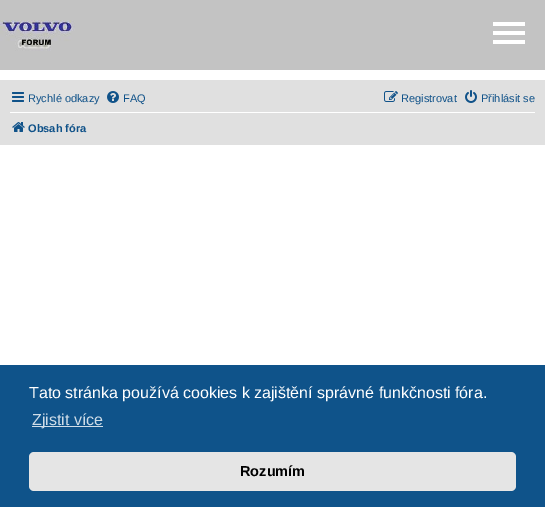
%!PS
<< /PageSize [545 507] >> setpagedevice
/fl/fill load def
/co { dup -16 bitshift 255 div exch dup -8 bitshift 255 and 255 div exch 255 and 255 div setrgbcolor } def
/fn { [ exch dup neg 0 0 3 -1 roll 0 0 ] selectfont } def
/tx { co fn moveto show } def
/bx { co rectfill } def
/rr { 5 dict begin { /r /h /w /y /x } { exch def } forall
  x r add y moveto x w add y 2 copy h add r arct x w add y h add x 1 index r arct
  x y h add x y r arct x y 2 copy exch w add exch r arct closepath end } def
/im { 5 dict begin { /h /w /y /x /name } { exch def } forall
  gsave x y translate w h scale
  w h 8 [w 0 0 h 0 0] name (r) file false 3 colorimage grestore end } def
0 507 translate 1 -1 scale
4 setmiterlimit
0 0 545 507 16#C3C3C3 bx
(media/1.raw) 0 20 75 31 im
493 22 32 4 16#FFFFFF bx
493 31 32 4 16#FFFFFF bx
493 40 32 4 16#FFFFFF bx
0 70 545 295 16#FFFFFF bx
0 80 545 65 16#E0E0E0 bx
(media/2.raw) 12 92 12 10 im
(media/3.raw) 107 91 12 12 im
(media/4.raw) 384 91 14 11 im
(media/5.raw) 465 90 12 13 im
10 112 525 1 16#FFFFFF bx
(media/6.raw) 12 122 13 10 im
0 365 545 142 16#0F538A bx
32 426 71 1 16#CFDDE8 bx
16#E5E5E5 co
29 452 487 39 5 rr fl
(Rychlé odkazy) 28 102 /LiberationSans-Regular 11 16#105289 tx
(FAQ) 123 102 /LiberationSans-Regular 11 16#105289 tx
(Registrovat) 401 102 /LiberationSans-Regular 11 16#105289 tx
(Přihlásit se) 481 102 /LiberationSans-Regular 11 16#105289 tx
(Obsah fóra) 28 132 /LiberationSans-Bold 11 16#105289 tx
(Tato stránka používá cookies k zajištění správné funkčnosti fóra.) 29 398 /LiberationSans-Regular 16 16#FFFFFF tx
(Zjistit více) 32 425 /LiberationSans-Regular 16 16#CFDDE8 tx
(Rozumím) 240 476 /LiberationSans-Bold 14.5 16#000000 tx
showpage
